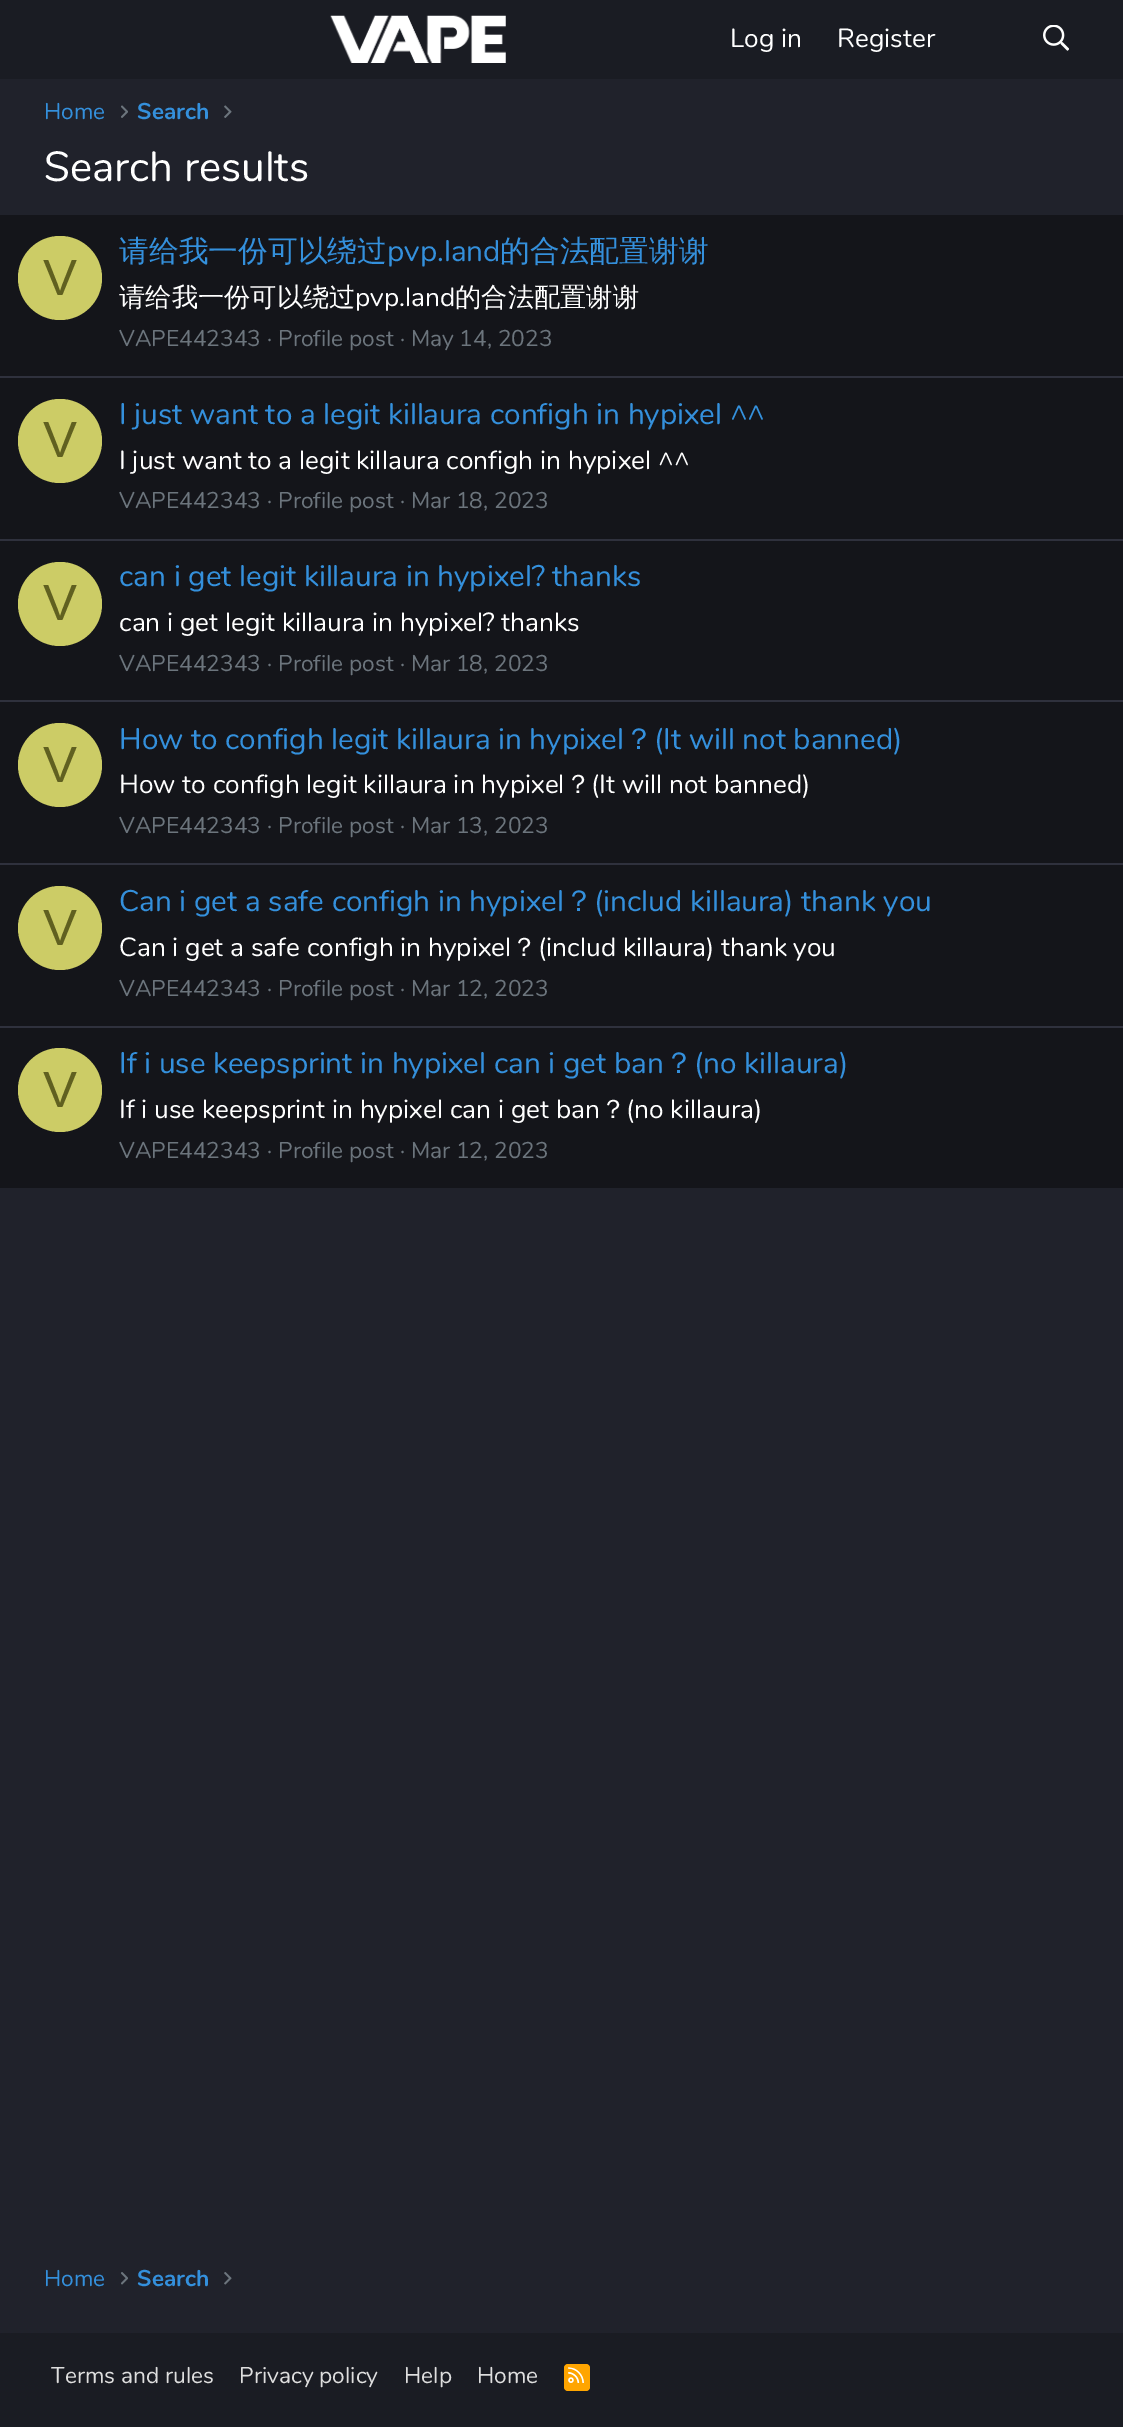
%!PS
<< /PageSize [1123 2427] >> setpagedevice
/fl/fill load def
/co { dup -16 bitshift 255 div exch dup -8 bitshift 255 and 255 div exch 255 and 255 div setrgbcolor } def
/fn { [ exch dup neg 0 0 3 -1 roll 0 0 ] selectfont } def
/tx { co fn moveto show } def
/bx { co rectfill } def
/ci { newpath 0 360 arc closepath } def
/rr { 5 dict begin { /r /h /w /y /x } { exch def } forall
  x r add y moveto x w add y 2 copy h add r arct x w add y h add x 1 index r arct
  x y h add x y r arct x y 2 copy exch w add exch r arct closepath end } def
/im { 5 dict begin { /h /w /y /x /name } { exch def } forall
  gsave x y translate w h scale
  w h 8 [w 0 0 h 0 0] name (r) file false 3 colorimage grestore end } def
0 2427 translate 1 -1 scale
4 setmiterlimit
0 0 1123 2427 16#20222B bx
0 0 1123 79 16#1A1C23 bx
(media/1.raw) 330 15 176 48 im
(media/2.raw) 1043 25 26 26 im
(media/3.raw) 121 105 7 13 im
(media/4.raw) 224 105 8 13 im
0 215 1123 973 16#14151A bx
16#CCCC66 co
60 278 42 ci fl
0 376 1123 2 16#2F313D bx
16#CCCC66 co
60 441 42 ci fl
0 539 1123 2 16#2F313D bx
16#CCCC66 co
60 604 42 ci fl
0 700 1123 2 16#2F313D bx
16#CCCC66 co
60 765 42 ci fl
0 863 1123 2 16#2F313D bx
16#CCCC66 co
60 928 42 ci fl
0 1026 1123 2 16#2F313D bx
16#CCCC66 co
60 1090 42 ci fl
(media/5.raw) 121 2272 7 13 im
(media/6.raw) 224 2272 8 13 im
0 2333 1123 94 16#1A1C23 bx
16#FFA500 co
564 2364 26 27 4 rr fl
(media/7.raw) 568 2367 16 16 im
(Log in) 730 47 /Nunito-Regular 26.25 16#FFFFFF tx
(Register) 837 47 /Nunito-Regular 26.25 16#FFFFFF tx
(Home) 44 119 /Nunito-Regular 22.75 16#3490DC tx
(Search) 137 119 /Nunito-Bold 22.75 16#3490DC tx
(Search results) 44 181 /Nunito-Regular 42 16#FFFFFF tx
(V) 43 295 /LiberationSans-Regular 51 16#606020 tx
(请给我一份可以绕过) 119 261 /WenQuanYiZenHei-Medium 29.75 16#3490DC tx
(pvp.land) 387 261 /Nunito-Regular 29.75 16#3490DC tx
(的合法配置谢谢) 500 261 /WenQuanYiZenHei-Medium 29.75 16#3490DC tx
(请给我一份可以绕过) 119 306 /WenQuanYiZenHei-Medium 26.25 16#FFFFFF tx
(pvp.land) 355 306 /Nunito-Regular 26.25 16#FFFFFF tx
(的合法配置谢谢) 455 306 /WenQuanYiZenHei-Medium 26.25 16#FFFFFF tx
(VAPE442343 · Profile post · May 14, 2023) 119 346 /Nunito-Regular 22.75 16#6C757D tx
(V) 43 457 /LiberationSans-Regular 51 16#606020 tx
(I just want to a legit killaura configh in hypixel ^^) 119 424 /Nunito-Regular 29.75 16#3490DC tx
(I just want to a legit killaura configh in hypixel ^^) 119 469 /Nunito-Regular 26.25 16#FFFFFF tx
(VAPE442343 · Profile post · Mar 18, 2023) 119 508 /Nunito-Regular 22.75 16#6C757D tx
(V) 43 620 /LiberationSans-Regular 51 16#606020 tx
(can i get legit killaura in hypixel? thanks) 119 586 /Nunito-Regular 29.75 16#3490DC tx
(can i get legit killaura in hypixel? thanks) 119 631 /Nunito-Regular 26.25 16#FFFFFF tx
(VAPE442343 · Profile post · Mar 18, 2023) 119 671 /Nunito-Regular 22.75 16#6C757D tx
(V) 43 782 /LiberationSans-Regular 51 16#606020 tx
(How to configh legit killaura in hypixel) 119 749 /Nunito-Regular 29.75 16#3490DC tx
(？) 624 749 /WenQuanYiZenHei-Medium 29.75 16#3490DC tx
(\(It will not banned\)) 654 749 /Nunito-Regular 29.75 16#3490DC tx
(How to configh legit killaura in hypixel) 119 793 /Nunito-Regular 26.25 16#FFFFFF tx
(？) 565 793 /WenQuanYiZenHei-Medium 26.25 16#FFFFFF tx
(\(It will not banned\)) 591 793 /Nunito-Regular 26.25 16#FFFFFF tx
(VAPE442343 · Profile post · Mar 13, 2023) 119 833 /Nunito-Regular 22.75 16#6C757D tx
(V) 43 945 /LiberationSans-Regular 51 16#606020 tx
(Can i get a safe configh in hypixel) 119 911 /Nunito-Regular 29.75 16#3490DC tx
(？) 564 911 /WenQuanYiZenHei-Medium 29.75 16#3490DC tx
(\(includ killaura\) thank you) 594 911 /Nunito-Regular 29.75 16#3490DC tx
(Can i get a safe configh in hypixel) 119 956 /Nunito-Regular 26.25 16#FFFFFF tx
(？) 511 956 /WenQuanYiZenHei-Medium 26.25 16#FFFFFF tx
(\(includ killaura\) thank you) 538 956 /Nunito-Regular 26.25 16#FFFFFF tx
(VAPE442343 · Profile post · Mar 12, 2023) 119 996 /Nunito-Regular 22.75 16#6C757D tx
(V) 43 1107 /LiberationSans-Regular 51 16#606020 tx
(If i use keepsprint in hypixel can i get ban) 119 1073 /Nunito-Regular 29.75 16#3490DC tx
(？) 664 1073 /WenQuanYiZenHei-Medium 29.75 16#3490DC tx
(\(no killaura\)) 694 1073 /Nunito-Regular 29.75 16#3490DC tx
(If i use keepsprint in hypixel can i get ban) 119 1118 /Nunito-Regular 26.25 16#FFFFFF tx
(？) 600 1118 /WenQuanYiZenHei-Medium 26.25 16#FFFFFF tx
(\(no killaura\)) 626 1118 /Nunito-Regular 26.25 16#FFFFFF tx
(VAPE442343 · Profile post · Mar 12, 2023) 119 1158 /Nunito-Regular 22.75 16#6C757D tx
(Home) 44 2286 /Nunito-Regular 22.75 16#3490DC tx
(Search) 137 2286 /Nunito-Bold 22.75 16#3490DC tx
(Terms and rules) 51 2383 /Nunito-Regular 22.75 16#DEDEDE tx
(Privacy policy) 239 2383 /Nunito-Regular 22.75 16#DEDEDE tx
(Help) 404 2383 /Nunito-Regular 22.75 16#DEDEDE tx
(Home) 477 2383 /Nunito-Regular 22.75 16#DEDEDE tx
showpage
